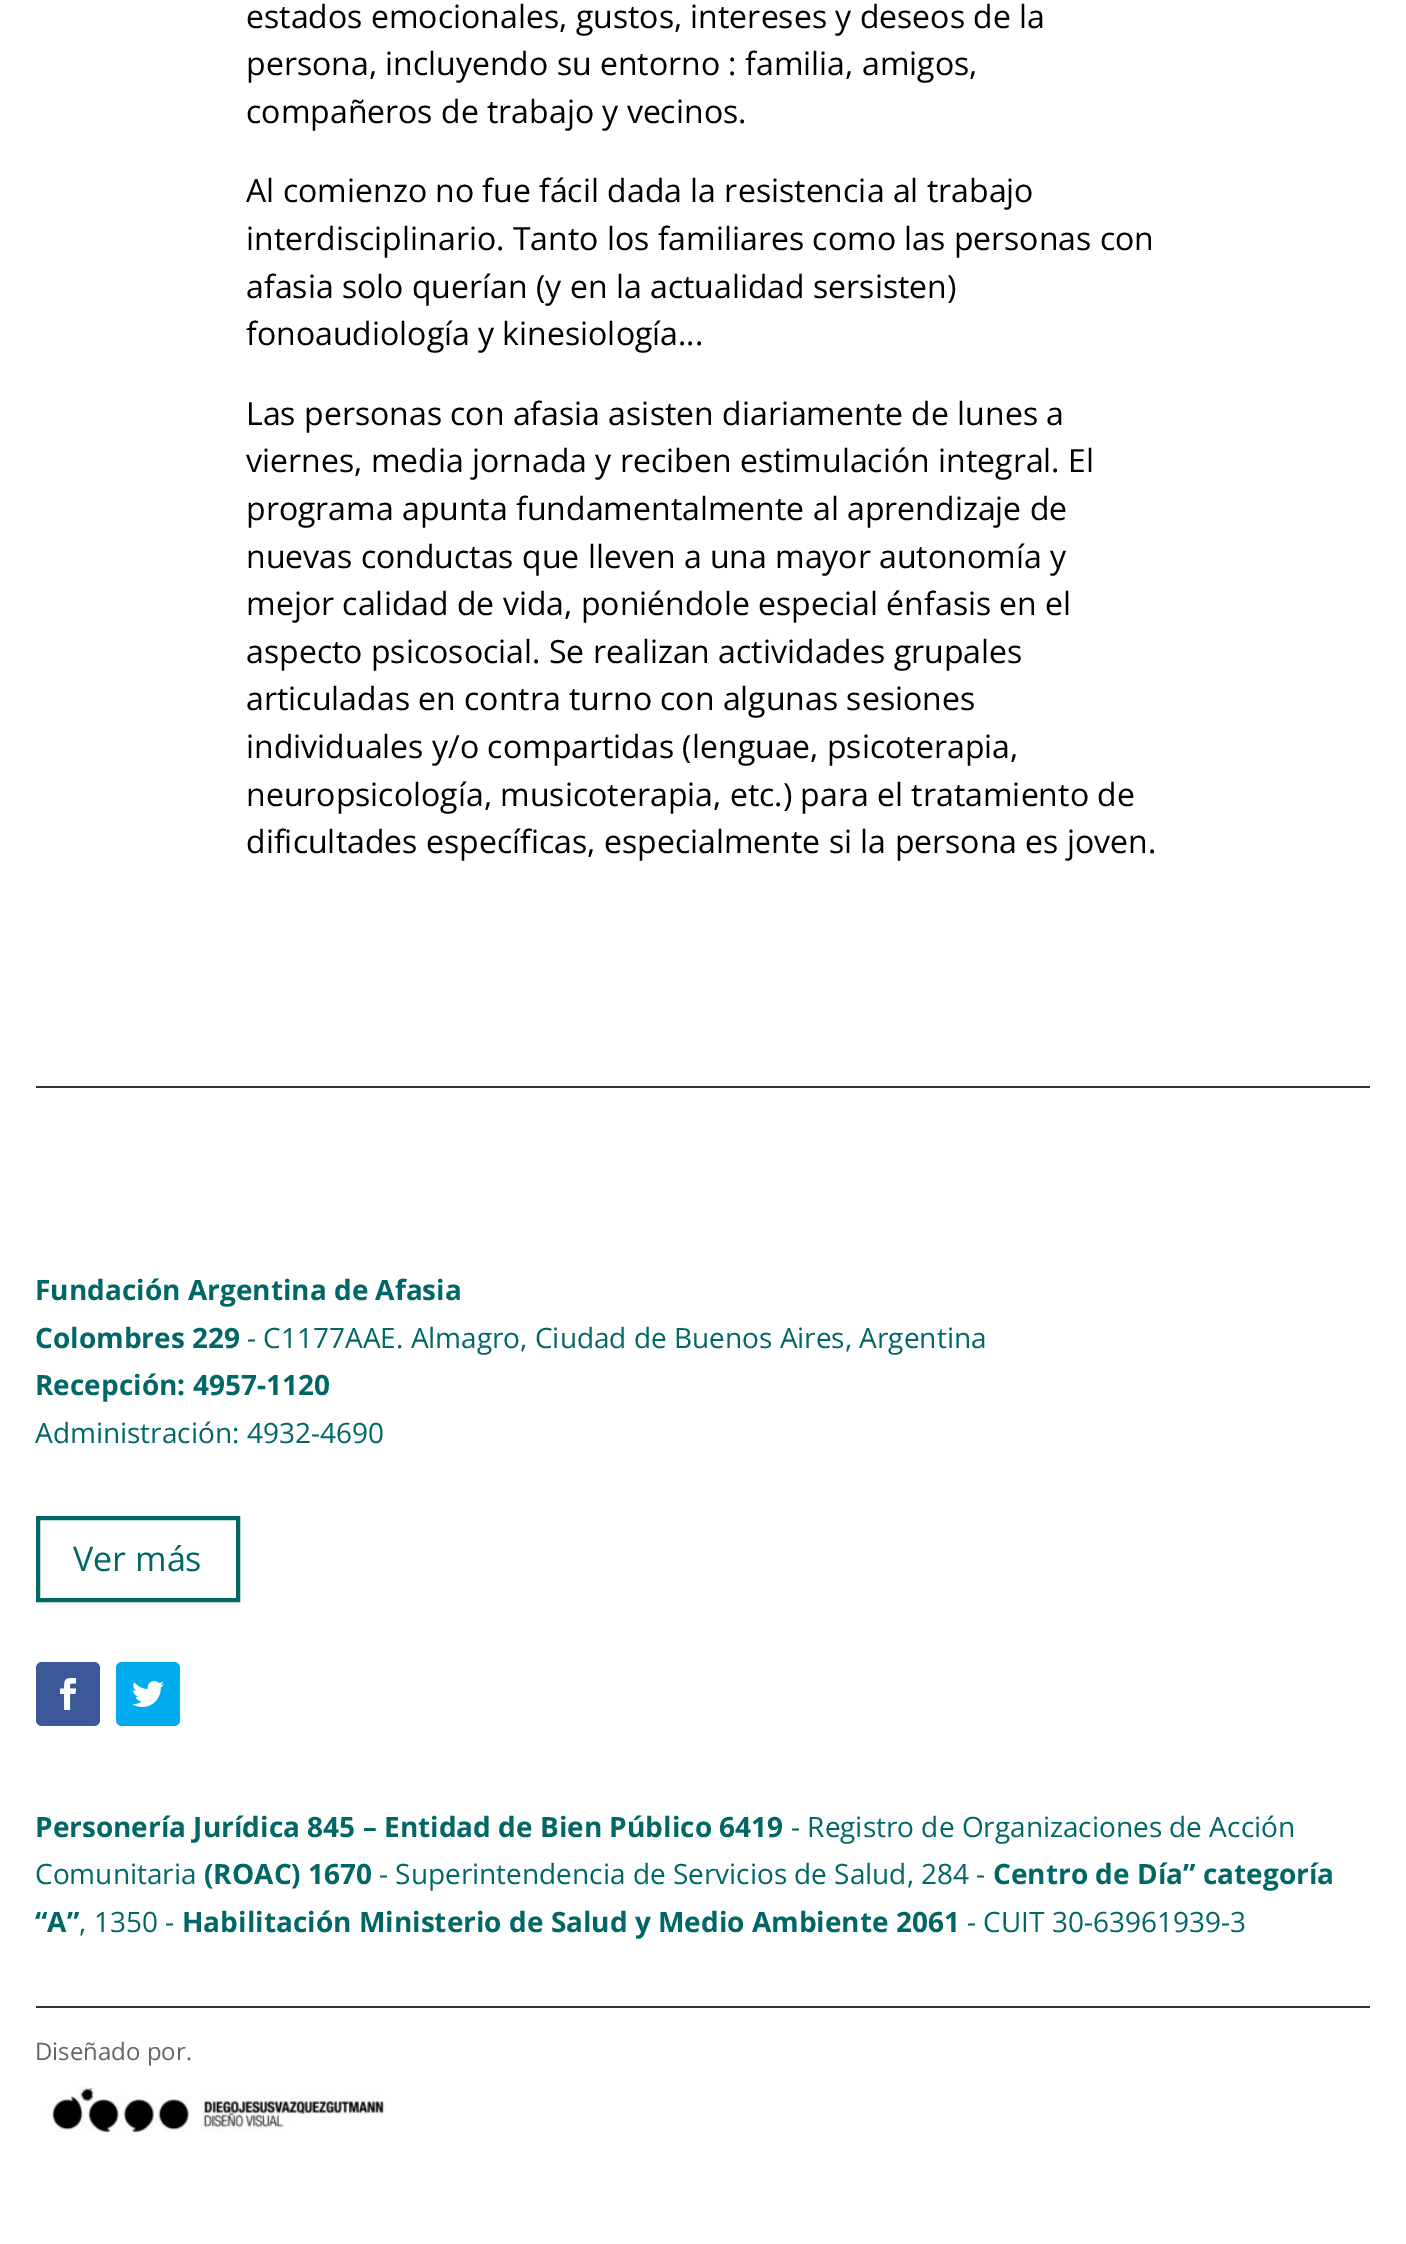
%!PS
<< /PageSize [1406 2244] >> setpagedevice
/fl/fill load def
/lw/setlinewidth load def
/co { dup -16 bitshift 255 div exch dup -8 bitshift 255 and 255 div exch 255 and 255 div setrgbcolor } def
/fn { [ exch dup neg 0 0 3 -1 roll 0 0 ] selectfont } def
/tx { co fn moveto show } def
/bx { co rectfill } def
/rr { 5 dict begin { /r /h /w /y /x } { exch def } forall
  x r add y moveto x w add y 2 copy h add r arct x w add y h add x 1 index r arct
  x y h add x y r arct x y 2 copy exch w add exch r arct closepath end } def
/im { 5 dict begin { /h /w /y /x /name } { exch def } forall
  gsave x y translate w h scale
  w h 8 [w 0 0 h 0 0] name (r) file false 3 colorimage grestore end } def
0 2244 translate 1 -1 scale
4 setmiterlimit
0 0 1406 2244 16#FFFFFF bx
36 1086 1334 2 16#333333 bx
16#006666 co
4 lw
38 1518 200 82 rectstroke
16#3B5998 co
36 1662 64 64 6 rr fl
(media/1.raw) 60 1678 17 32 im
16#00ACED co
116 1662 64 64 6 rr fl
(media/2.raw) 132 1681 32 26 im
36 2006 1334 2 16#333333 bx
(media/3.raw) 47 2086 338 48 im
(estados emocionales, gustos, intereses y deseos de la) 246 28 /OpenSans-Regular 32 16#000000 tx
(persona, incluyendo su entorno : familia, amigos,) 246 75 /OpenSans-Regular 32 16#000000 tx
(compañeros de trabajo y vecinos.) 246 123 /OpenSans-Regular 32 16#000000 tx
(Al comienzo no fue fácil dada la resistencia al trabajo) 246 202 /OpenSans-Regular 32 16#000000 tx
(interdisciplinario. Tanto los familiares como las personas con) 246 250 /OpenSans-Regular 32 16#000000 tx
(afasia solo querían \(y en la actualidad sersisten\)) 246 298 /OpenSans-Regular 32 16#000000 tx
(fonoaudiología y kinesiología...) 246 345 /OpenSans-Regular 32 16#000000 tx
(Las personas con afasia asisten diariamente de lunes a) 246 425 /OpenSans-Regular 32 16#000000 tx
(viernes, media jornada y reciben estimulación integral. El) 246 472 /OpenSans-Regular 32 16#000000 tx
(programa apunta fundamentalmente al aprendizaje de) 246 520 /OpenSans-Regular 32 16#000000 tx
(nuevas conductas que lleven a una mayor autonomía y) 246 568 /OpenSans-Regular 32 16#000000 tx
(mejor calidad de vida, poniéndole especial énfasis en el) 246 615 /OpenSans-Regular 32 16#000000 tx
(aspecto psicosocial. Se realizan actividades grupales) 246 663 /OpenSans-Regular 32 16#000000 tx
(articuladas en contra turno con algunas sesiones) 246 710 /OpenSans-Regular 32 16#000000 tx
(individuales y/o compartidas \(lenguae, psicoterapia,) 246 758 /OpenSans-Regular 32 16#000000 tx
(neuropsicología, musicoterapia, etc.\) para el tratamiento de) 246 806 /OpenSans-Regular 32 16#000000 tx
(dificultades específicas, especialmente si la persona es joven.) 246 853 /OpenSans-Regular 32 16#000000 tx
(Fundación Argentina de Afasia) 35 1300 /OpenSans-Bold 28 16#006666 tx
(Colombres 229) 35 1348 /OpenSans-Bold 28 16#006666 tx
(- C1177AAE. Almagro, Ciudad de Buenos Aires, Argentina) 247 1348 /OpenSans-Regular 28 16#006666 tx
(Recepción: 4957-1120) 35 1395 /OpenSans-Bold 28 16#006666 tx
(Administración: 4932-4690) 35 1443 /OpenSans-Regular 28 16#006666 tx
(Ver más) 73 1571 /OpenSans-Regular 34 16#006666 tx
(Personería Jurídica 845 – Entidad de Bien Público 6419) 35 1837 /OpenSans-Bold 28 16#006666 tx
(- Registro de Organizaciones de Acción) 791 1837 /OpenSans-Regular 28 16#006666 tx
(Comunitaria) 35 1884 /OpenSans-Regular 28 16#006666 tx
(\(ROAC\) 1670) 204 1884 /OpenSans-Bold 28 16#006666 tx
(- Superintendencia de Servicios de Salud, 284 -) 379 1884 /OpenSans-Regular 28 16#006666 tx
(Centro de Día” categoría) 993 1884 /OpenSans-Bold 28 16#006666 tx
(“A”) 35 1932 /OpenSans-Bold 28 16#006666 tx
(, 1350 -) 79 1932 /OpenSans-Regular 28 16#006666 tx
(Habilitación Ministerio de Salud y Medio Ambiente 2061) 182 1932 /OpenSans-Bold 28 16#006666 tx
(- CUIT 30-63961939-3) 967 1932 /OpenSans-Regular 28 16#006666 tx
(Diseñado por.) 35 2060 /OpenSans-Regular 24 16#666666 tx
showpage
